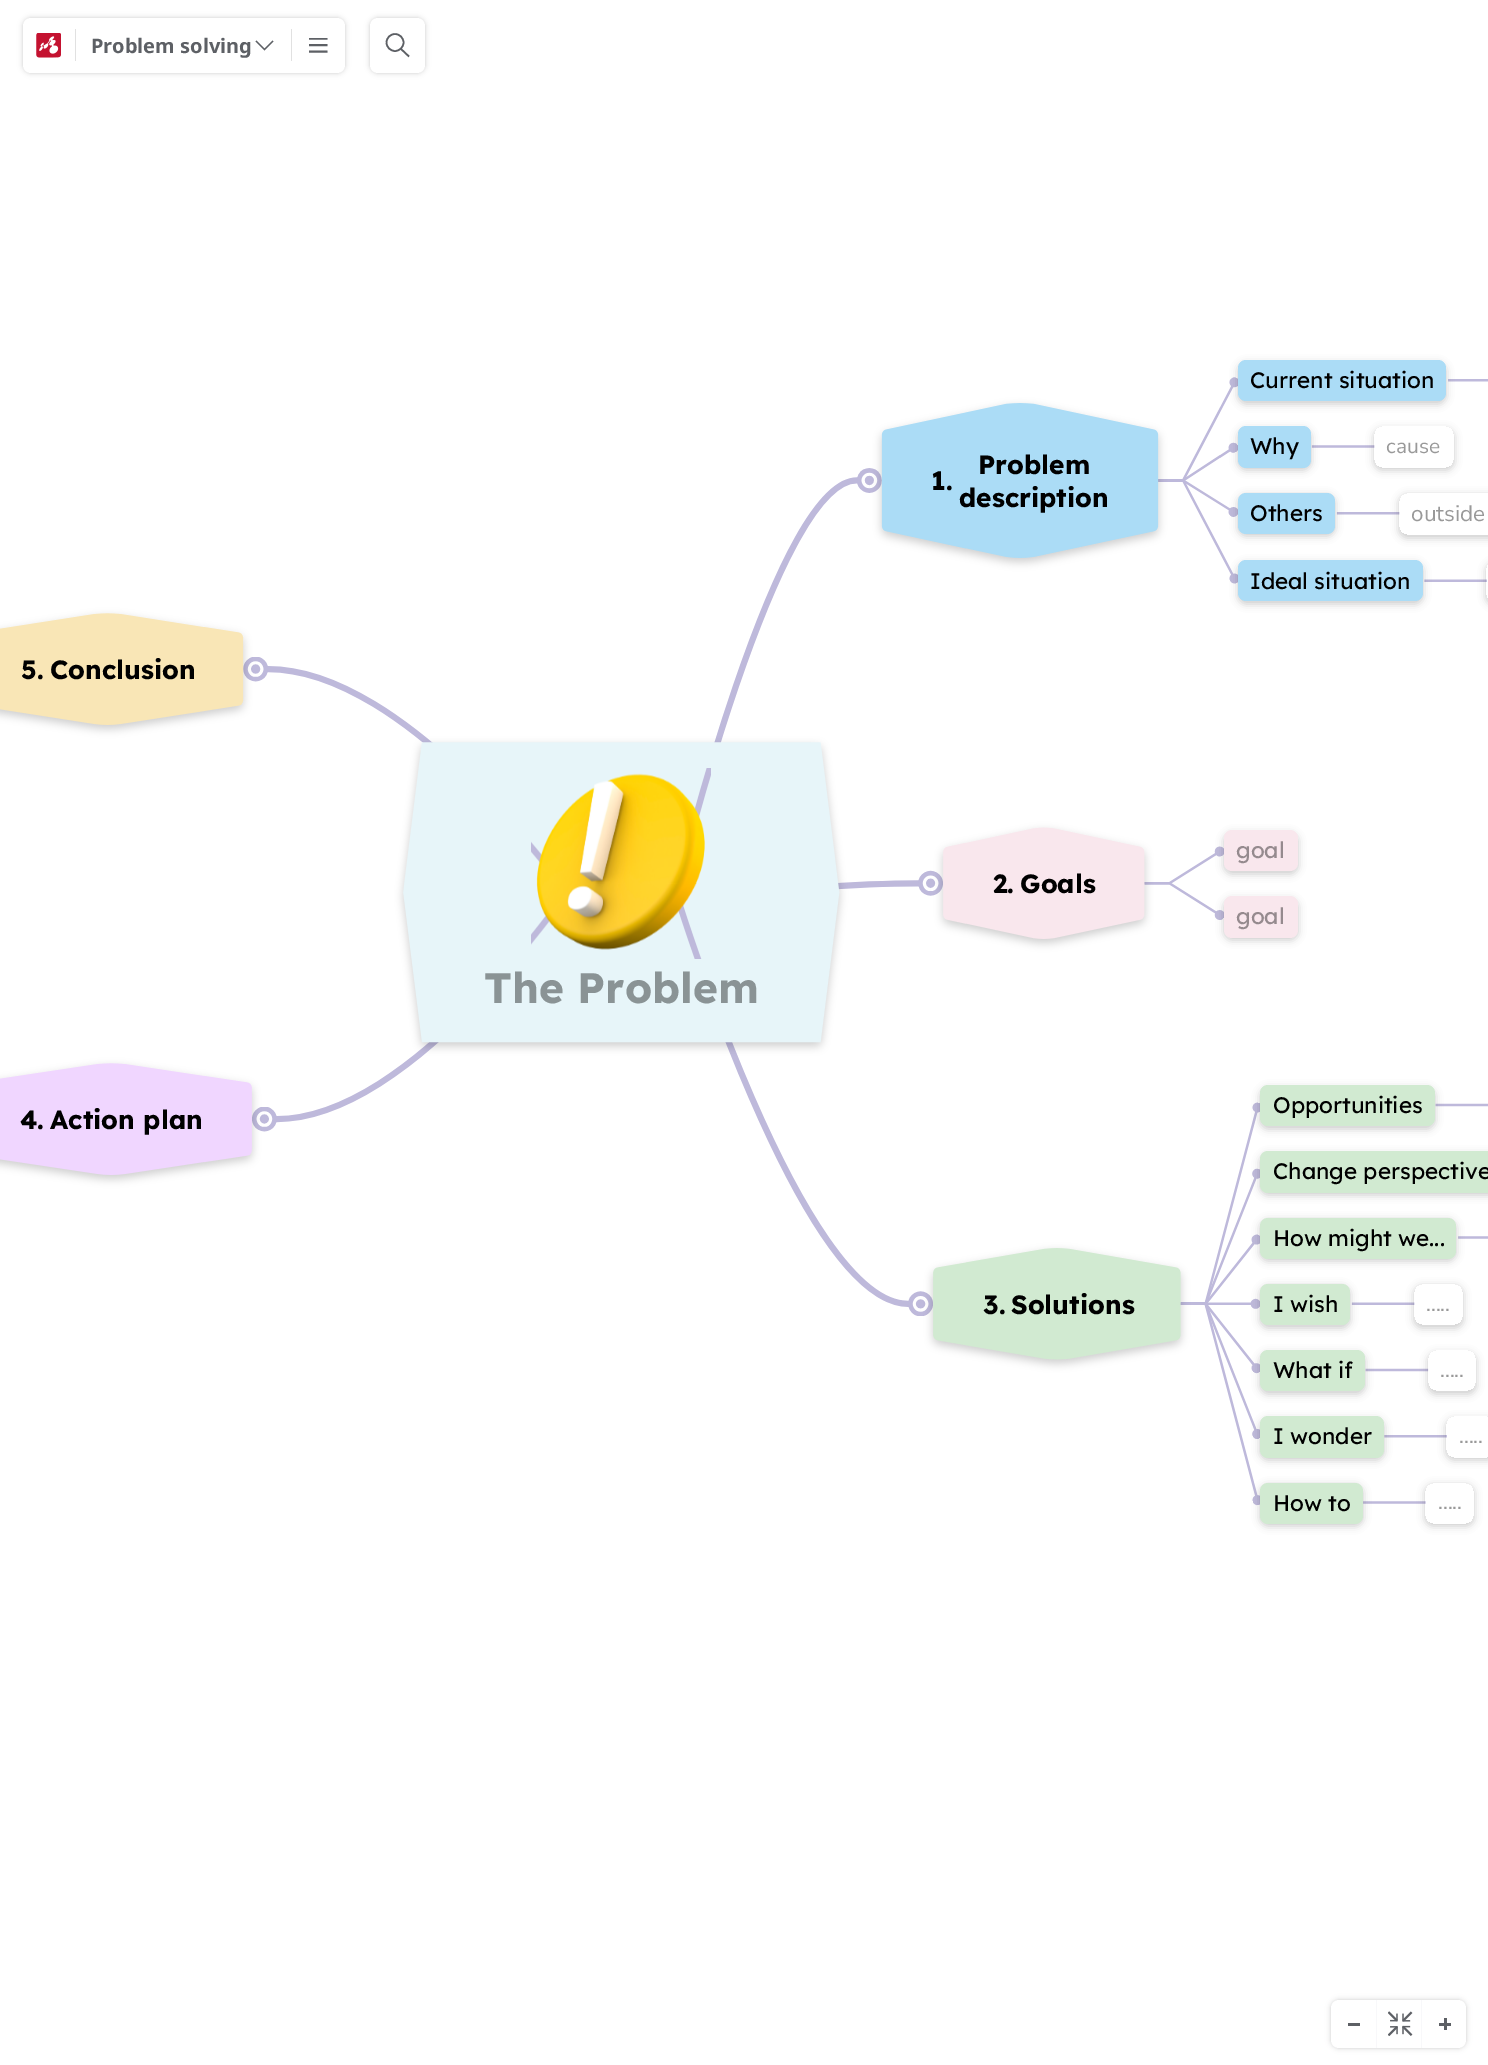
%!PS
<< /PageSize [1488 2065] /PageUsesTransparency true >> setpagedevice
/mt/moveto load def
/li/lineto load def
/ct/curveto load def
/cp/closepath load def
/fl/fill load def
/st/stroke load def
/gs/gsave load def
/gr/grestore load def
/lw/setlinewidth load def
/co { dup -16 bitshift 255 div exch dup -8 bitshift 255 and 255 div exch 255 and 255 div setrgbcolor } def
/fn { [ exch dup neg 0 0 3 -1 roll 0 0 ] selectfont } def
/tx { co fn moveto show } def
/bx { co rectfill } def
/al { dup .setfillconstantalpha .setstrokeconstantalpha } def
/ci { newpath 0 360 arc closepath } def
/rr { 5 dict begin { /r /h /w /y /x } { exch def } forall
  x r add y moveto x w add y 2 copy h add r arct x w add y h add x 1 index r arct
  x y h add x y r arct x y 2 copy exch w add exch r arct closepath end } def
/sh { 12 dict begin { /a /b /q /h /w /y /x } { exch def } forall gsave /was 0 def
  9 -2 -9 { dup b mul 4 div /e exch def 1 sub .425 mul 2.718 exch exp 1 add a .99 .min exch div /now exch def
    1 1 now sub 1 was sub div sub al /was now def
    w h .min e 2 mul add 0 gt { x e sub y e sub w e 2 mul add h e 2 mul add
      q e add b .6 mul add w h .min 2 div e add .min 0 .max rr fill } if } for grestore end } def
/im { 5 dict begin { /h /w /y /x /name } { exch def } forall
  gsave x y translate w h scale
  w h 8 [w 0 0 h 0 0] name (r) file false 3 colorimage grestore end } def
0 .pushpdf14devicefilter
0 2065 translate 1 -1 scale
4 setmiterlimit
0 0 1488 2065 16#FFFFFF bx
16#000000 co
23 18 322 55 8 3 .1 sh
23 18 322 55 8 2 .1 sh
16#FFFFFF co
23 18 322 55 8 rr fl
(media/1.raw) 36 33 25 25 im
75 29 1 32 16#E1E1E1 bx
16#5D6065 co
1.4 lw
273 41 mt 264.5 49.5 li 256 41 li st
291 29 1 32 16#E1E1E1 bx
gs
309 38 19 15 rectclip
16#5D6065 co
1.9 lw
309 38.5 mt 327.5 38.5 li 309 45 mt 327.5 45 li 309 51.5 mt 327.5 51.5 li st
gr
16#000000 co
370 18 55 55 8 3 .1 sh
370 18 55 55 8 2 .1 sh
16#FFFFFF co
370 18 55 55 8 rr fl
16#5D6065 co
1.6 lw
395 42.5 8.5 ci st
401 49 mt 409 56.5 li st
(media/2.raw) 0 377 1488 1129 im
16#000000 co
1238 363 208 41 8 4 .2 sh
16#ABDCF6 co
1238 360 208 41 8 rr fl
16#000000 co
1238 429 73 41 8 4 .2 sh
16#ABDCF6 co
1238 426 73 42 8 rr fl
gs
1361 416 mt 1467 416 li 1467 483 li 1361 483 li cp 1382 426 mt 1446 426 li 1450.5 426 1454 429.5 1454 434 ct 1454 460 li 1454 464.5 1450.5 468 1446 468 ct 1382 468 li 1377.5 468 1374 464.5 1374 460 ct 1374 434 li 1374 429.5 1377.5 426 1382 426 ct cp eoclip newpath
16#000000 co
1374 429 80 41 8 4 .2 sh
gr
16#000000 co
1238 495 97 41 8 4 .2 sh
16#ABDCF6 co
1238 493 97 41 8 rr fl
gs
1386 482 mt 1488 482 li 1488 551 li 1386 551 li cp 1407 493 mt 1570 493 li 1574.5 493 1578 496.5 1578 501 ct 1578 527 li 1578 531.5 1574.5 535 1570 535 ct 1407 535 li 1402.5 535 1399 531.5 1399 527 ct 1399 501 li 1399 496.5 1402.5 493 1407 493 ct cp eoclip newpath
16#000000 co
1399 495 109 43 8 4 .2 sh
gr
16#000000 co
1238 563 185 41 8 4 .2 sh
16#ABDCF6 co
1238 560 185 41 8 rr fl
gs
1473 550 mt 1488 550 li 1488 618 li 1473 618 li cp 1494 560 mt 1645 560 li 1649.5 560 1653 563.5 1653 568 ct 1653 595 li 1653 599.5 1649.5 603 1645 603 ct 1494 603 li 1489.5 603 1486 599.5 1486 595 ct 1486 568 li 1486 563.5 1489.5 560 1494 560 ct cp eoclip newpath
16#000000 co
1486 563 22 42 8 4 .2 sh
gr
16#000000 co
1224 833 74 41 8 4 .2 sh
16#F9E7ED co
1224 830 74 41 8 rr fl
16#000000 co
1224 899 74 41 8 4 .2 sh
16#F9E7ED co
1224 896 74 42 8 rr fl
(media/3.raw) 531 768 180 191 im
16#000000 co
1260 1088 175 41 8 4 .2 sh
16#D1EAD1 co
1260 1085 175 41 8 rr fl
16#000000 co
1260 1154 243 41 8 4 .2 sh
16#D1EAD1 co
1268 1151 mt 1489 1151 li 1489 1193 li 1268 1193 li 1263.5 1193 1260 1189.5 1260 1185 ct 1260 1159 li 1260 1154.5 1263.5 1151 1268 1151 ct cp fl
16#000000 co
1260 1220 196 41 8 4 .2 sh
16#D1EAD1 co
1260 1218 196 41 8 rr fl
16#000000 co
1260 1286 90 42 8 4 .2 sh
16#D1EAD1 co
1260 1284 90 41 8 rr fl
gs
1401 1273 mt 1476 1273 li 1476 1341 li 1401 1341 li cp 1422 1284 mt 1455 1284 li 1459.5 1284 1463 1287.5 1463 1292 ct 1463 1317 li 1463 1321.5 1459.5 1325 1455 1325 ct 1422 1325 li 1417.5 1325 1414 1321.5 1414 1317 ct 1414 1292 li 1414 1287.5 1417.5 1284 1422 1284 ct cp eoclip newpath
16#000000 co
1414 1286 49 42 8 4 .2 sh
gr
16#000000 co
1260 1353 105 41 8 4 .2 sh
16#D1EAD1 co
1260 1350 105 41 8 rr fl
gs
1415 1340 mt 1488 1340 li 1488 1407 li 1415 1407 li cp 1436 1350 mt 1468 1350 li 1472.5 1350 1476 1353.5 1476 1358 ct 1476 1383 li 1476 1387.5 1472.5 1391 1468 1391 ct 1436 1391 li 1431.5 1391 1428 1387.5 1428 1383 ct 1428 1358 li 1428 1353.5 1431.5 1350 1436 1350 ct cp eoclip newpath
16#000000 co
1428 1353 48 41 8 4 .2 sh
gr
16#000000 co
1260 1419 124 41 8 4 .2 sh
16#D1EAD1 co
1260 1416 124 42 8 rr fl
gs
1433 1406 mt 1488 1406 li 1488 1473 li 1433 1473 li cp 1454 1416 mt 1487 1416 li 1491.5 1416 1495 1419.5 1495 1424 ct 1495 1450 li 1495 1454.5 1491.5 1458 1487 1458 ct 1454 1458 li 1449.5 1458 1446 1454.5 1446 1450 ct 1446 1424 li 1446 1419.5 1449.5 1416 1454 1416 ct cp eoclip newpath
16#000000 co
1446 1419 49 41 8 4 .2 sh
gr
16#000000 co
1260 1485 103 41 8 4 .2 sh
16#D1EAD1 co
1260 1483 103 41 8 rr fl
gs
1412 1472 mt 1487 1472 li 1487 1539 li 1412 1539 li cp 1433 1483 mt 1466 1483 li 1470.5 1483 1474 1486.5 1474 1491 ct 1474 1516 li 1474 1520.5 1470.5 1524 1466 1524 ct 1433 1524 li 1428.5 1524 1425 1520.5 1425 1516 ct 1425 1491 li 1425 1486.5 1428.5 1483 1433 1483 ct cp eoclip newpath
16#000000 co
1425 1485 49 41 8 4 .2 sh
gr
16#000000 co
1331 2000 135 48 8 3 .1 sh
1331 2000 135 48 8 2 .1 sh
16#FFFFFF co
1331 2000 135 48 8 rr fl
1348 2023 12 3 16#5D6065 bx
1376 2000 1 48 16#F8F8FA bx
(media/4.raw) 1388 2011 25 25 im
1421 2000 1 48 16#F8F8FA bx
1439 2023 12 3 16#5D6065 bx
1444 2018 3 12 16#5D6065 bx
(Problem solving) 91 53 /NotoSans-Bold 20 16#5D6065 tx
(Current situation) 1250 388 /Lexend-Regular 22.5 16#000000 tx
(Why) 1250 454 /Lexend-Regular 22.5 16#000000 tx
(cause) 1386 453 /NunitoSans-Regular 21 16#999999 tx
(1.) 931 490 /Lexend-Bold 26.25 16#000000 tx
(Problem) 978 474 /Lexend-Bold 26.25 16#000000 tx
(description) 959 507 /Lexend-Bold 26.25 16#000000 tx
(Others) 1250 521 /Lexend-Regular 22.5 16#000000 tx
(outside) 1411 521 /NunitoSans-Regular 22.5 16#999999 tx
(Ideal situation) 1250 589 /Lexend-Regular 22.5 16#000000 tx
(5.) 21 679 /Lexend-Bold 26.25 16#000000 tx
(Conclusion) 50 679 /Lexend-Bold 26.25 16#000000 tx
(goal) 1236 858 /Lexend-Regular 22.5 16#958A8E tx
(2.) 993 893 /Lexend-Bold 26.25 16#000000 tx
(Goals) 1020 893 /Lexend-Bold 26.25 16#000000 tx
(goal) 1236 924 /Lexend-Regular 22.5 16#958A8E tx
(The Problem) 484 1003 /Lexend-Bold 42.5 16#8A9395 tx
(4.) 20 1129 /Lexend-Bold 26.25 16#000000 tx
(Action plan) 50 1129 /Lexend-Bold 26.25 16#000000 tx
(Opportunities) 1273 1113 /Lexend-Regular 22.5 16#000000 tx
(Change perspective) 1273 1179 /Lexend-Regular 22.5 16#000000 tx
(How might we...) 1273 1246 /Lexend-Regular 22.5 16#000000 tx
(3.) 983 1314 /Lexend-Bold 26.25 16#000000 tx
(Solutions) 1011 1314 /Lexend-Bold 26.25 16#000000 tx
(I wish) 1273 1312 /Lexend-Regular 22.5 16#000000 tx
(.....) 1426 1311 /NunitoSans-Regular 21 16#999999 tx
(What if) 1273 1378 /Lexend-Regular 22.5 16#000000 tx
(.....) 1440 1377 /NunitoSans-Regular 21 16#999999 tx
(I wonder) 1273 1444 /Lexend-Regular 22.5 16#000000 tx
(.....) 1459 1443 /NunitoSans-Regular 21 16#999999 tx
(How to) 1273 1511 /Lexend-Regular 22.5 16#000000 tx
(.....) 1438 1509 /NunitoSans-Regular 21 16#999999 tx
.poppdf14devicefilter showpage
